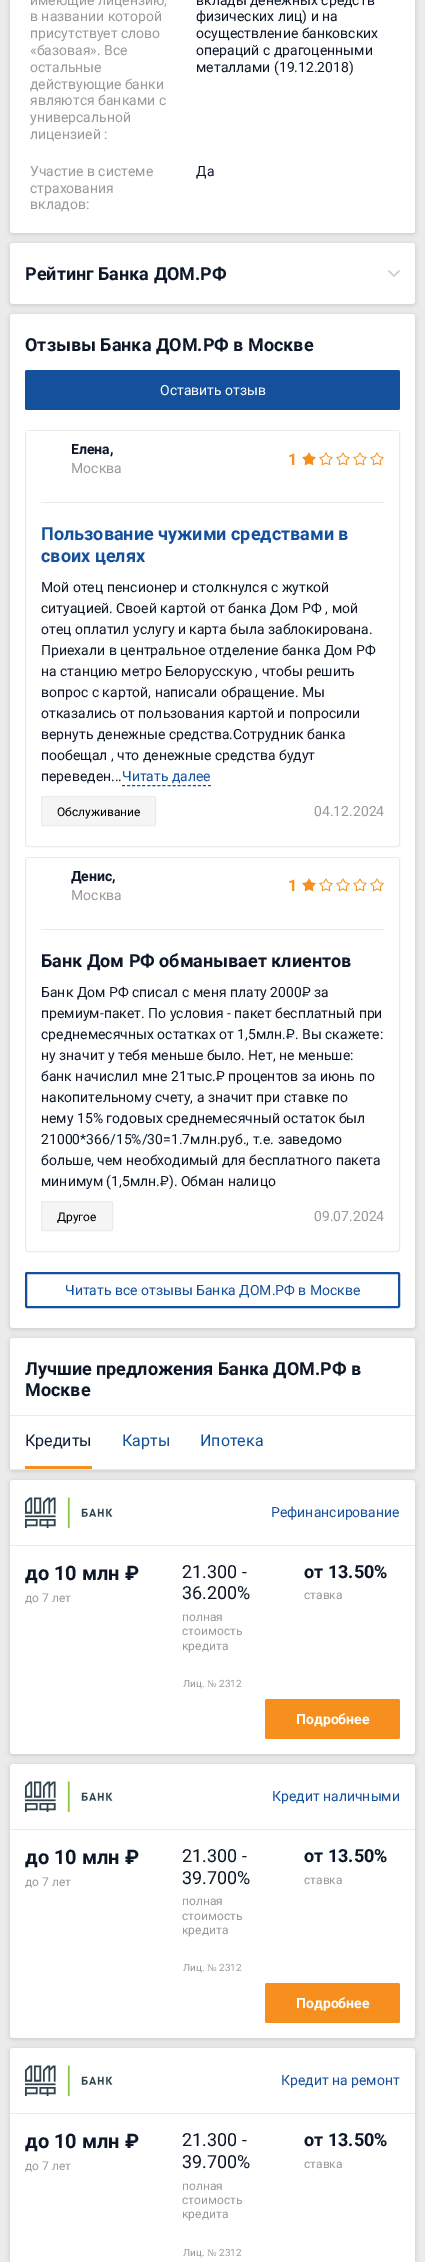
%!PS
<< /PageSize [425 2262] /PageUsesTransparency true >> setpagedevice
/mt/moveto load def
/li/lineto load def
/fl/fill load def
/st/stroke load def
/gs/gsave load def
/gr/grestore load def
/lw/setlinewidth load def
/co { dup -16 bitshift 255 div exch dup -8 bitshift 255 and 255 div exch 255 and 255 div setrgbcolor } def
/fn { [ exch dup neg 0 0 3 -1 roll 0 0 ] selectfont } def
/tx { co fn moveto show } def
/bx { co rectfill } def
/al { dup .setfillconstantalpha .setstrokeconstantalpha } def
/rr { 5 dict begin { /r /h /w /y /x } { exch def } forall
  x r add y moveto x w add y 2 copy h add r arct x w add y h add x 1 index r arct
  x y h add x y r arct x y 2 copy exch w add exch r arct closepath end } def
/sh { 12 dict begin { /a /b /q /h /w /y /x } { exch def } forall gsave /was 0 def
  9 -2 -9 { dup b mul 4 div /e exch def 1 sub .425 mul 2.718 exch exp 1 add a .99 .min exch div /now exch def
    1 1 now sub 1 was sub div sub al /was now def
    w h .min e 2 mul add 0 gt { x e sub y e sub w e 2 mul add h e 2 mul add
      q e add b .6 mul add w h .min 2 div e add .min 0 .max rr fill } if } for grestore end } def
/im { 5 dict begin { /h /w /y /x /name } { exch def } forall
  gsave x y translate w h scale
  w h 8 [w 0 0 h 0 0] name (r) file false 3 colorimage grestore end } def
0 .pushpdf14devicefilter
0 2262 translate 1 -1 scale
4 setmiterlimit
0 0 425 2262 16#EBEBEB bx
16#000000 co
10 -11 405 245 3 2.5 .15 sh
16#FFFFFF co
10 -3 405 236 3 rr fl
16#000000 co
10 244 405 61 3 2.5 .15 sh
16#FFFFFF co
10 243 405 61 3 rr fl
(media/1.raw) 388 270 12 7 im
16#000000 co
10 315 405 1014 3 2.5 .15 sh
16#FFFFFF co
10 314 405 1014 3 rr fl
16#14509C co
25 370 375 40 2 rr fl
16#EBEBEB co
25.5 430.5 374 416 2.5 rr st
26 431 373 1 16#FFFFFF bx
41 502 343 1 16#EBEBEB bx
(media/2.raw) 302 452 14 14 im
(media/3.raw) 319 452 14 14 im
(media/3.raw) 336 452 14 14 im
(media/3.raw) 353 452 14 14 im
(media/3.raw) 370 452 14 14 im
16#14509C co
[3 2.06] 0 setdash
122 785.5 mt 211 785.5 li st
16#F5F5F5 co
41.5 796.5 114 29 1.5 rr gs fl gr
16#EBEBEB co
[] 0 setdash
st
25.5 857.5 374 394 2.5 rr st
26 858 373 1 16#FFFFFF bx
41 929 343 1 16#EBEBEB bx
(media/2.raw) 302 878 14 14 im
(media/3.raw) 319 878 14 14 im
(media/3.raw) 336 878 14 14 im
(media/3.raw) 353 878 14 14 im
(media/3.raw) 370 878 14 14 im
16#F5F5F5 co
41.5 1201.5 71 29 1.5 rr gs fl gr
16#EBEBEB co
st
16#14509C co
2 lw
26 1273 373 34 1 rr st
16#000000 co
10 1339 405 132 3 2.5 .15 sh
16#FFFFFF co
10 1338 405 132 3 rr fl
10 1415 405 1 16#EBEBEB bx
10 1469 405 1 16#EBEBEB bx
25 1466 67 3 16#F78F1E bx
16#000000 co
10 1481 405 274 3 2.5 .15 sh
16#FFFFFF co
10 1480 405 274 3 rr fl
10 1545 405 1 16#EBEBEB bx
(media/4.raw) 25 1497 88 31 im
16#F78F1E co
265 1699 135 40 2 rr fl
16#000000 co
10 1765 405 274 3 2.5 .15 sh
16#FFFFFF co
10 1764 405 274 3 rr fl
10 1829 405 1 16#EBEBEB bx
(media/4.raw) 25 1781 88 31 im
16#F78F1E co
265 1983 135 40 2 rr fl
16#000000 co
10 2049 405 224 3 2.5 .15 sh
16#FFFFFF co
10 2048 405 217 3 rr fl
10 2113 405 1 16#EBEBEB bx
(media/4.raw) 25 2065 88 31 im
(имеющие лицензию,) 30 5 /Roboto-Regular 14 16#999999 tx
(в названии которой) 30 21 /Roboto-Regular 14 16#999999 tx
(присутствует слово) 30 38 /Roboto-Regular 14 16#999999 tx
(«базовая». Все) 30 55 /Roboto-Regular 14 16#999999 tx
(остальные) 30 72 /Roboto-Regular 14 16#999999 tx
(действующие банки) 30 89 /Roboto-Regular 14 16#999999 tx
(являются банками с) 30 105 /Roboto-Regular 14 16#999999 tx
(универсальной) 30 122 /Roboto-Regular 14 16#999999 tx
(лицензией :) 30 139 /Roboto-Regular 14 16#999999 tx
(вклады денежных средств) 196 5 /Roboto-Regular 14 16#0E1829 tx
(физических лиц\) и на) 196 21 /Roboto-Regular 14 16#0E1829 tx
(осуществление банковских) 196 38 /Roboto-Regular 14 16#0E1829 tx
(операций с драгоценными) 196 55 /Roboto-Regular 14 16#0E1829 tx
(металлами \(19.12.2018\)) 196 72 /Roboto-Regular 14 16#0E1829 tx
(Участие в системе) 30 176 /Roboto-Regular 14 16#999999 tx
(страхования) 30 193 /Roboto-Regular 14 16#999999 tx
(вкладов:) 30 209 /Roboto-Regular 14 16#999999 tx
(Да) 196 176 /Roboto-Regular 14 16#0E1829 tx
(Рейтинг Банка ДОМ.РФ) 25 280 /Roboto-Bold 18 16#0E1829 tx
(Отзывы Банка ДОМ.РФ в Москве) 25 351 /Roboto-Bold 18 16#0E1829 tx
(Оставить отзыв) 160 395 /Roboto-Regular 14 16#FFFFFF tx
(Елена,) 71 454 /Roboto-Bold 14 16#0E1829 tx
(Москва) 71 473 /Roboto-Regular 14 16#999999 tx
(1) 288 465 /Roboto-Bold 16 16#F78F1E tx
(Пользование чужими средствами в) 41 540 /Roboto-Bold 18 16#14509C tx
(своих целях) 41 562 /Roboto-Bold 18 16#14509C tx
(Мой отец пенсионер и столкнулся с жуткой) 41 592 /Roboto-Regular 14 16#0E1829 tx
(ситуацией. Своей картой от банка Дом РФ , мой) 41 613 /Roboto-Regular 14 16#0E1829 tx
(отец оплатил услугу и карта была заблокирована.) 41 634 /Roboto-Regular 14 16#0E1829 tx
(Приехали в центральное отделение банка Дом РФ) 41 655 /Roboto-Regular 14 16#0E1829 tx
(на станцию метро Белорусскую , чтобы решить) 41 676 /Roboto-Regular 14 16#0E1829 tx
(вопрос с картой, написали обращение. Мы) 41 697 /Roboto-Regular 14 16#0E1829 tx
(отказались от пользования картой и попросили) 41 718 /Roboto-Regular 14 16#0E1829 tx
(вернуть денежные средства.Сотрудник банка) 41 739 /Roboto-Regular 14 16#0E1829 tx
(пообещал , что денежные средства будут) 41 760 /Roboto-Regular 14 16#0E1829 tx
(переведен...) 41 781 /Roboto-Regular 14 16#0E1829 tx
(Читать далее) 122 781 /Roboto-Regular 14 16#14509C tx
(Обслуживание) 57 816 /Roboto-Regular 12 16#000000 tx
(04.12.2024) 314 816 /Roboto-Regular 14 16#999999 tx
(Денис,) 71 881 /Roboto-Bold 14 16#0E1829 tx
(Москва) 71 900 /Roboto-Regular 14 16#999999 tx
(1) 288 891 /Roboto-Bold 16 16#F78F1E tx
(Банк Дом РФ обманывает клиентов) 41 967 /Roboto-Bold 18 16#0E1829 tx
(Банк Дом РФ списал с меня плату 2000₽ за) 41 997 /Roboto-Regular 14 16#0E1829 tx
(премиум-пакет. По условия - пакет бесплатный при) 41 1018 /Roboto-Regular 14 16#0E1829 tx
(среднемесячных остатках от 1,5млн.₽. Вы скажете:) 41 1039 /Roboto-Regular 14 16#0E1829 tx
(ну значит у тебя меньше было. Нет, не меньше:) 41 1060 /Roboto-Regular 14 16#0E1829 tx
(банк начислил мне 21тыс.₽ процентов за июнь по) 41 1081 /Roboto-Regular 14 16#0E1829 tx
(накопительному счету, а значит при ставке по) 41 1102 /Roboto-Regular 14 16#0E1829 tx
(нему 15% годовых среднемесячный остаток был) 41 1123 /Roboto-Regular 14 16#0E1829 tx
(21000*366/15%/30=1.7млн.руб., т.е. заведомо) 41 1144 /Roboto-Regular 14 16#0E1829 tx
(больше, чем необходимый для бесплатного пакета) 41 1165 /Roboto-Regular 14 16#0E1829 tx
(минимум \(1,5млн.₽\). Обман налицо) 41 1186 /Roboto-Regular 14 16#0E1829 tx
(Другое) 57 1221 /Roboto-Regular 12 16#000000 tx
(09.07.2024) 314 1221 /Roboto-Regular 14 16#999999 tx
(Читать все отзывы Банка ДОМ.РФ в Москве) 65 1295 /Roboto-Regular 14 16#14509C tx
(Лучшие предложения Банка ДОМ.РФ в) 25 1375 /Roboto-Bold 18 16#0E1829 tx
(Москве) 25 1396 /Roboto-Bold 18 16#0E1829 tx
(Кредиты) 25 1446 /Roboto-Regular 16 16#112238 tx
(Карты) 122 1446 /Roboto-Regular 16 16#14509C tx
(Ипотека) 200 1446 /Roboto-Regular 16 16#14509C tx
(Рефинансирование) 271 1517 /Roboto-Regular 14 16#14509C tx
(до 10 млн ₽) 25 1580 /Roboto-Bold 20 16#0E1829 tx
(до 7 лет) 25 1602 /Roboto-Regular 12 16#999999 tx
(21.300 -) 182 1578 /Roboto-Regular 18 16#0E1829 tx
(36.200%) 182 1599 /Roboto-Regular 18 16#0E1829 tx
(полная) 182 1621 /Roboto-Regular 12 16#999999 tx
(стоимость) 182 1635 /Roboto-Regular 12 16#999999 tx
(кредита) 182 1650 /Roboto-Regular 12 16#999999 tx
(от 13.50%) 304 1578 /Roboto-Bold 18 16#0E1829 tx
(ставка) 304 1599 /Roboto-Regular 12 16#999999 tx
(Лиц.) 183 1687 /Roboto-Regular 10 16#999999 tx
(№) 207 1687 /LiberationSerif-Regular 10 16#999999 tx
(2312) 219 1687 /Roboto-Regular 10 16#999999 tx
(Подробнее) 296 1724 /Roboto-Bold 14 16#FFFFFF tx
(Кредит наличными) 272 1801 /Roboto-Regular 14 16#14509C tx
(до 10 млн ₽) 25 1864 /Roboto-Bold 20 16#0E1829 tx
(до 7 лет) 25 1886 /Roboto-Regular 12 16#999999 tx
(21.300 -) 182 1862 /Roboto-Regular 18 16#0E1829 tx
(39.700%) 182 1884 /Roboto-Regular 18 16#0E1829 tx
(полная) 182 1905 /Roboto-Regular 12 16#999999 tx
(стоимость) 182 1920 /Roboto-Regular 12 16#999999 tx
(кредита) 182 1934 /Roboto-Regular 12 16#999999 tx
(от 13.50%) 304 1862 /Roboto-Bold 18 16#0E1829 tx
(ставка) 304 1884 /Roboto-Regular 12 16#999999 tx
(Лиц.) 183 1971 /Roboto-Regular 10 16#999999 tx
(№) 207 1971 /LiberationSerif-Regular 10 16#999999 tx
(2312) 219 1971 /Roboto-Regular 10 16#999999 tx
(Подробнее) 296 2008 /Roboto-Bold 14 16#FFFFFF tx
(Кредит на ремонт) 281 2085 /Roboto-Regular 14 16#14509C tx
(до 10 млн ₽) 25 2148 /Roboto-Bold 20 16#0E1829 tx
(до 7 лет) 25 2170 /Roboto-Regular 12 16#999999 tx
(21.300 -) 182 2146 /Roboto-Regular 18 16#0E1829 tx
(39.700%) 182 2168 /Roboto-Regular 18 16#0E1829 tx
(полная) 182 2190 /Roboto-Regular 12 16#999999 tx
(стоимость) 182 2204 /Roboto-Regular 12 16#999999 tx
(кредита) 182 2218 /Roboto-Regular 12 16#999999 tx
(от 13.50%) 304 2146 /Roboto-Bold 18 16#0E1829 tx
(ставка) 304 2168 /Roboto-Regular 12 16#999999 tx
(Лиц.) 183 2256 /Roboto-Regular 10 16#999999 tx
(№) 207 2256 /LiberationSerif-Regular 10 16#999999 tx
(2312) 219 2256 /Roboto-Regular 10 16#999999 tx
.poppdf14devicefilter showpage
